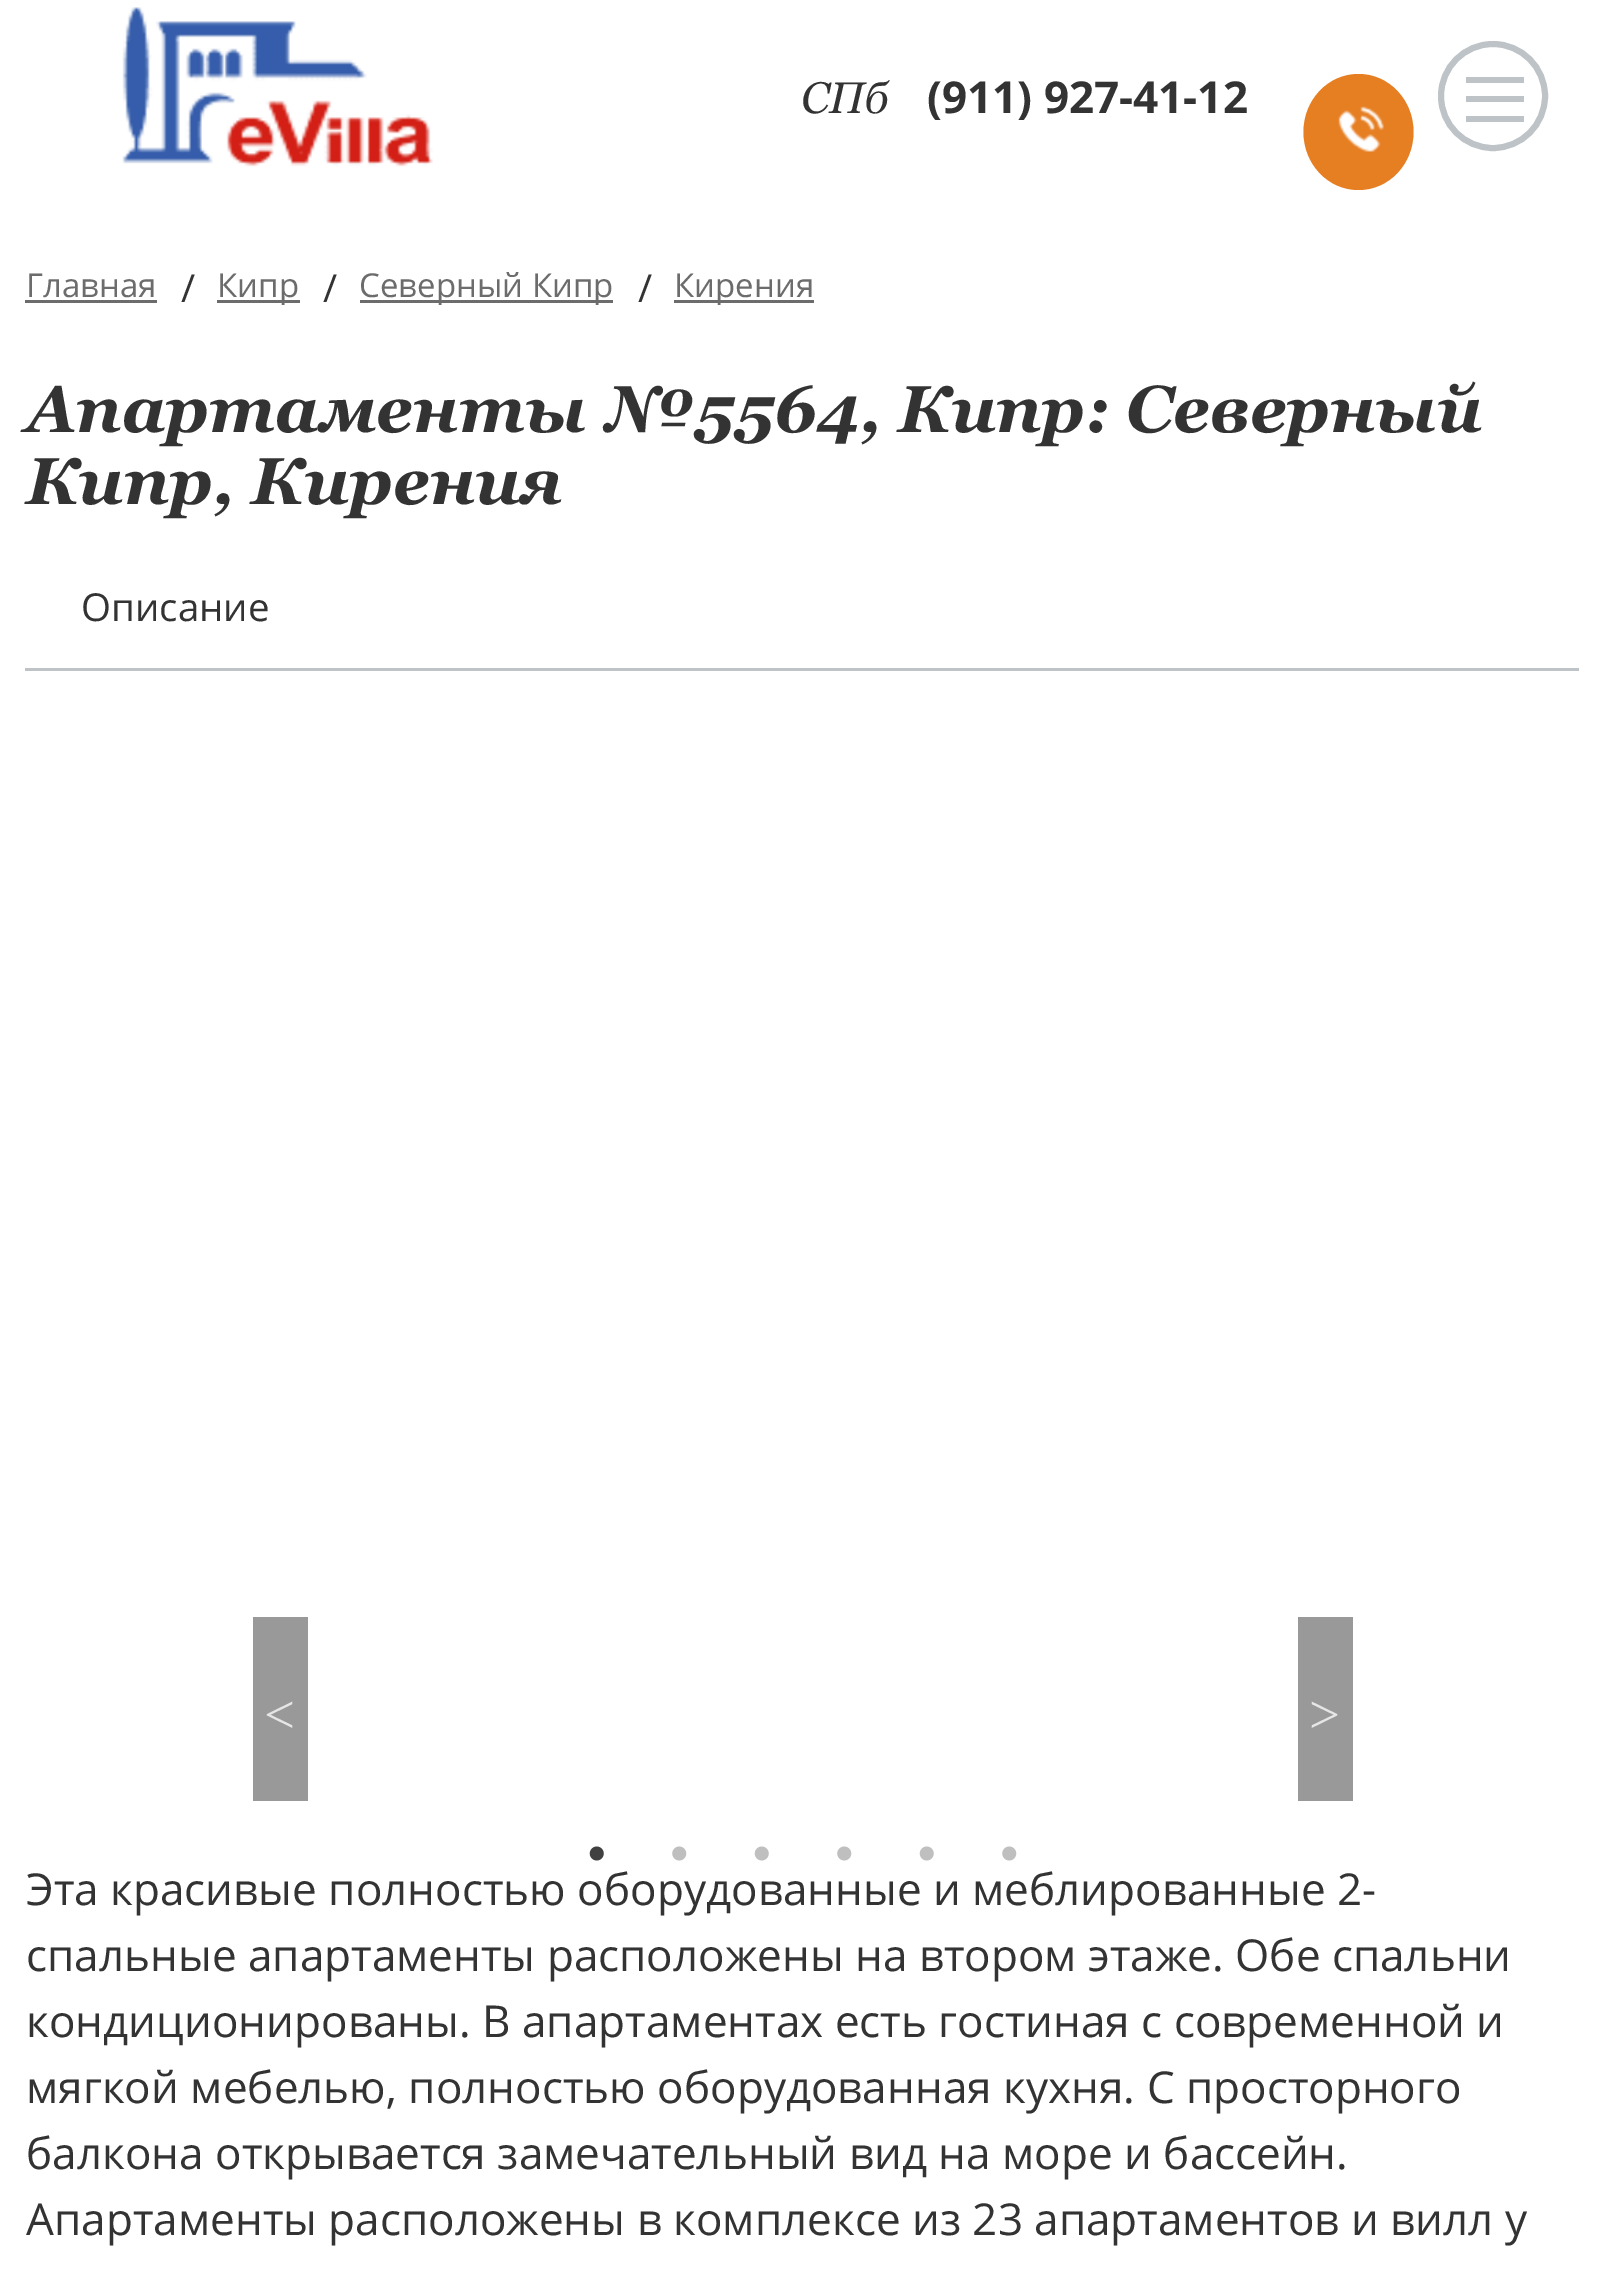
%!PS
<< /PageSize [1602 2276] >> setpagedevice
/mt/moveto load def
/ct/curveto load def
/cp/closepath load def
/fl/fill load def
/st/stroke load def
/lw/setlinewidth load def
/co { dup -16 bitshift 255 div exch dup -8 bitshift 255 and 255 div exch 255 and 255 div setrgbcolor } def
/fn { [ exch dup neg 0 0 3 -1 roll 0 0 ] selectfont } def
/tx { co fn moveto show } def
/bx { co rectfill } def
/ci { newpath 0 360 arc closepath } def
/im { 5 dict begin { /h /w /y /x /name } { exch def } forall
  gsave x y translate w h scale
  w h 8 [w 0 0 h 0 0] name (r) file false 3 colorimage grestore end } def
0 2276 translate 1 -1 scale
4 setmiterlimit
0 0 1602 2276 16#FFFFFF bx
(media/1.raw) 122 7 311 160 im
16#E67E22 co
1358.5 74 mt 1389 74 1413.5 100 1413.5 132 ct 1413.5 164 1389 190 1358.5 190 ct 1328 190 1303.5 164 1303.5 132 ct 1303.5 100 1328 74 1358.5 74 ct cp fl
(media/2.raw) 1338 106 46 46 im
16#BDC3C7 co
6 lw
1493 96 52 ci st
1466 77 58 6 16#BDC3C7 bx
1466 96 58 6 16#BDC3C7 bx
1466 116 58 6 16#BDC3C7 bx
25 300 132 3 16#6C6C6C bx
217 300 83 3 16#6C6C6C bx
360 300 253 3 16#6C6C6C bx
674 300 140 3 16#6C6C6C bx
25 668 1554 3 16#BDC3C7 bx
253 1617 55 184 16#999999 bx
1298 1617 55 184 16#999999 bx
(media/3.raw) 589 1846 15 15 im
(media/4.raw) 672 1846 15 15 im
(media/5.raw) 754 1846 15 15 im
(media/4.raw) 837 1846 15 15 im
(media/5.raw) 919 1846 15 15 im
(media/4.raw) 1002 1846 15 15 im
(СПб) 801 113 /Georgia-Italic 44 16#333333 tx
(\(911\) 927-41-12) 927 113 /OpenSans-Bold 44 16#333333 tx
(Главная) 26 297 /OpenSans-Regular 33 16#6C6C6C tx
(/) 181 302 /OpenSans-Regular 38.5 16#333333 tx
(Кипр) 217 297 /OpenSans-Regular 33 16#6C6C6C tx
(/) 323 302 /OpenSans-Regular 38.5 16#333333 tx
(Северный Кипр) 359 297 /OpenSans-Regular 33 16#6C6C6C tx
(/) 638 302 /OpenSans-Regular 38.5 16#333333 tx
(Кирения) 674 297 /OpenSans-Regular 33 16#6C6C6C tx
(Апартаменты №5564, Кипр: Северный) 26 432 /Georgia-BoldItalic 66 16#333333 tx
(Кипр, Кирения) 26 504 /Georgia-BoldItalic 66 16#333333 tx
(Описание) 81 621 /OpenSans-Regular 38.5 16#333333 tx
(<) 264 1733 /LiberationSerif-Regular 55 16#E6E6E6 tx
(>) 1309 1733 /LiberationSerif-Regular 55 16#E6E6E6 tx
(Эта красивые полностью оборудованные и меблированные 2-) 26 1905 /OpenSans-Regular 44 16#333333 tx
(спальные апартаменты расположены на втором этаже. Обе спальни) 26 1971 /OpenSans-Regular 44 16#333333 tx
(кондиционированы. В апартаментах есть гостиная с современной и) 26 2037 /OpenSans-Regular 44 16#333333 tx
(мягкой мебелью, полностью оборудованная кухня. С просторного) 26 2103 /OpenSans-Regular 44 16#333333 tx
(балкона открывается замечательный вид на море и бассейн.) 26 2169 /OpenSans-Regular 44 16#333333 tx
(Апартаменты расположены в комплексе из 23 апартаментов и вилл у) 26 2235 /OpenSans-Regular 44 16#333333 tx
showpage
